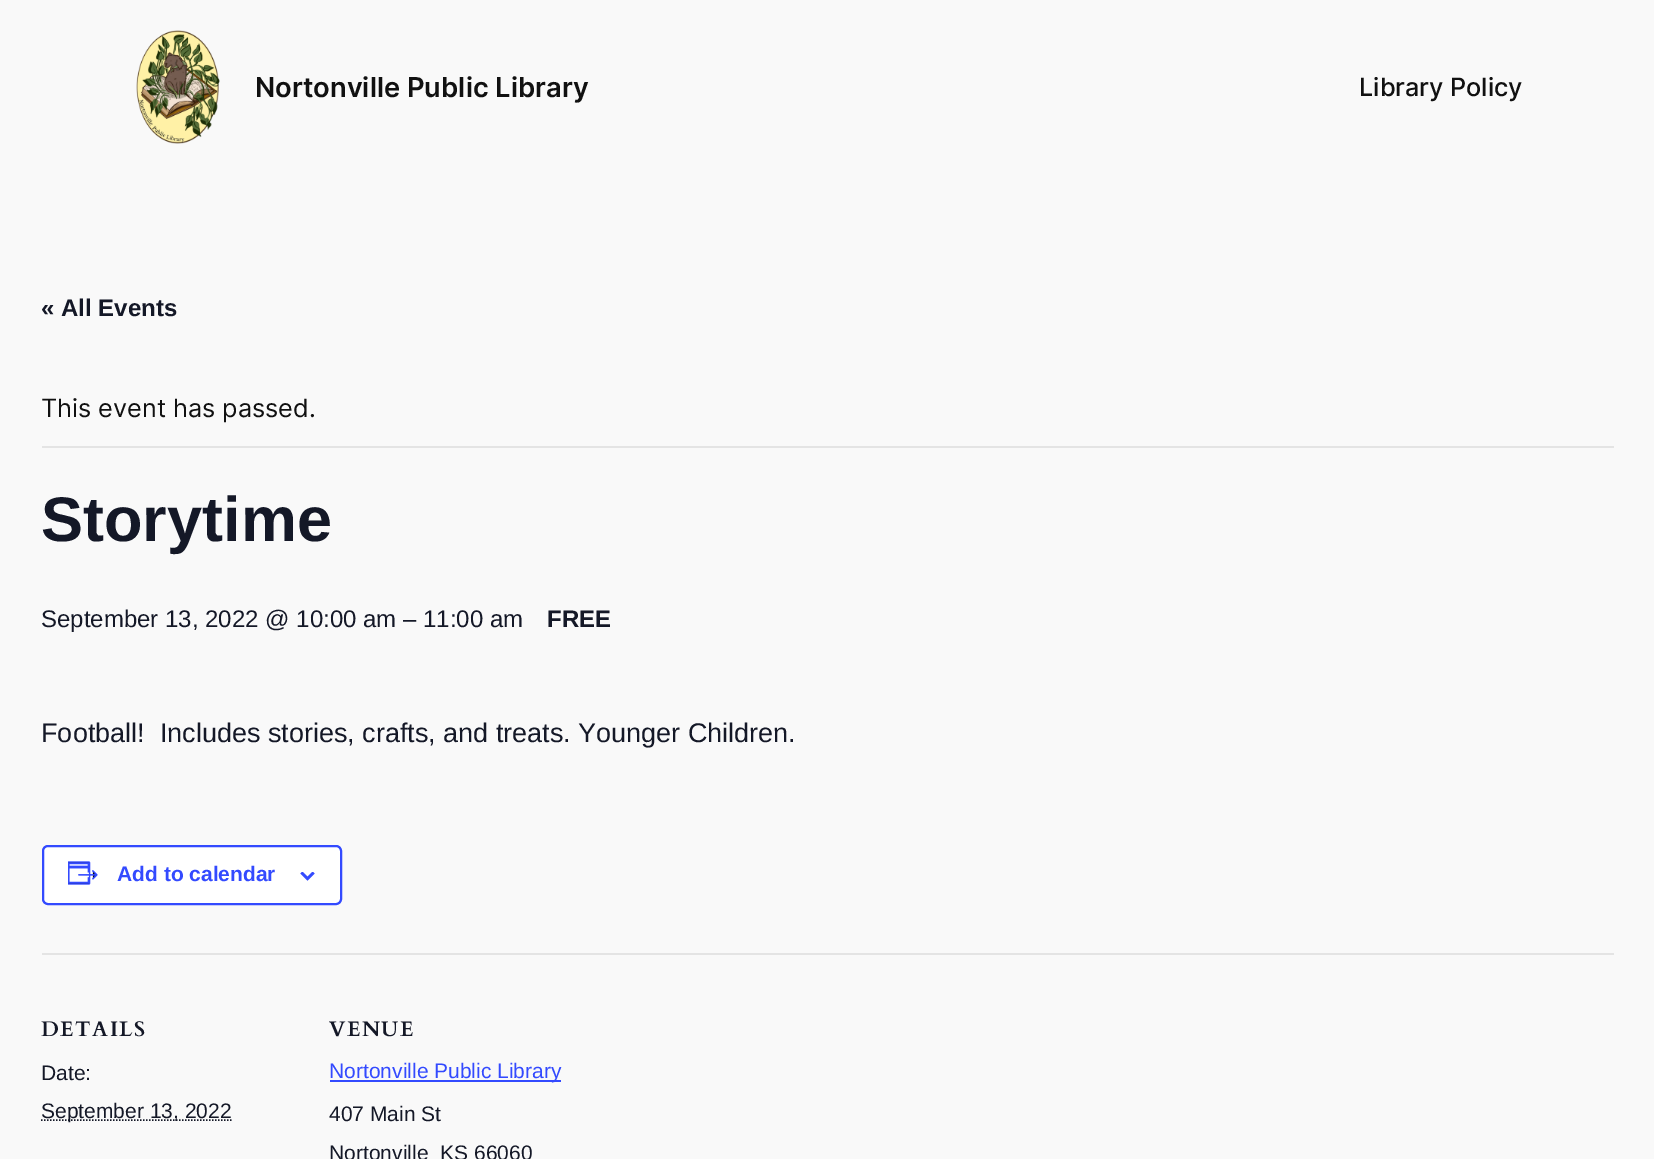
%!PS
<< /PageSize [1654 1159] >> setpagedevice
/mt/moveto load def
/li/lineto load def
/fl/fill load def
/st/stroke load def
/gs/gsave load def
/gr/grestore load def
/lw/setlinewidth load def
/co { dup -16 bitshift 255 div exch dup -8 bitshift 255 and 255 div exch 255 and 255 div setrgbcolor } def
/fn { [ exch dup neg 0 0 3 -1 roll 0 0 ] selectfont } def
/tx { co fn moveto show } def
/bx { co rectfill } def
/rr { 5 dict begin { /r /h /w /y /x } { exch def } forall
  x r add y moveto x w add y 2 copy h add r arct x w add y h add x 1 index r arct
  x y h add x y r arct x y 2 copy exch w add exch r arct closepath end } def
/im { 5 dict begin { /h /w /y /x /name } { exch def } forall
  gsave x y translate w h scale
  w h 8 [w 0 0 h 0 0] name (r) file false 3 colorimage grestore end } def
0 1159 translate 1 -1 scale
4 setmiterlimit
0 0 1654 1159 16#F9F9F9 bx
(media/1.raw) 136 30 84 114 im
42 446 1572 2 16#E4E4E4 bx
16#FFFFFF co
43 846 298 58 5 rr gs fl gr
16#334AFF co
2 lw
st
(media/2.raw) 68 861 30 24 im
(media/3.raw) 300 872 15 9 im
42 953 1572 2 16#E4E4E4 bx
16#141827 co
1.5 lw
[1.5 1.5] 0 setdash
41 1120 mt 231.5 1120 li st
330 1080 231 2 16#334AFF bx
(Nortonville Public Library) 255 97 /Inter-SemiBold 27.4 16#111111 tx
(Library Policy) 1359 96 /Inter-Medium 25.25 16#111111 tx
(« All Events) 41 316 /LiberationSans-Bold 24 16#141827 tx
(This event has passed.) 41 417 /Inter-Regular 25.25 16#111111 tx
(Storytime) 41 541 /LiberationSans-Bold 63 16#141827 tx
(September 13, 2022 @ 10:00 am – 11:00 am) 41 627 /LiberationSans-Regular 24 16#141827 tx
(FREE) 547 627 /LiberationSans-Bold 24 16#141827 tx
(Football!  Includes stories, crafts, and treats. Younger Children.) 41 742 /LiberationSans-Regular 27 16#141827 tx
(Add to calendar) 117 881 /LiberationSans-Bold 21 16#334AFF tx
/Cardo-Bold 21 fn
16#141827 co
41 1036 mt 1.5 0 (DETAILS) ashow
(Date:) 41 1080 /LiberationSans-Regular 21 16#141827 tx
(September 13, 2022) 41 1118 /LiberationSans-Regular 21 16#141827 tx
/Cardo-Bold 21 fn
329 1036 mt 1.5 0 (VENUE) ashow
(Nortonville Public Library) 329 1078 /LiberationSans-Regular 21 16#334AFF tx
(407 Main St) 329 1121 /LiberationSans-Regular 21 16#141827 tx
(Nortonville) 329 1160 /LiberationSans-Regular 21 16#141827 tx
(KS 66060) 440 1160 /LiberationSans-Regular 21 16#141827 tx
showpage
